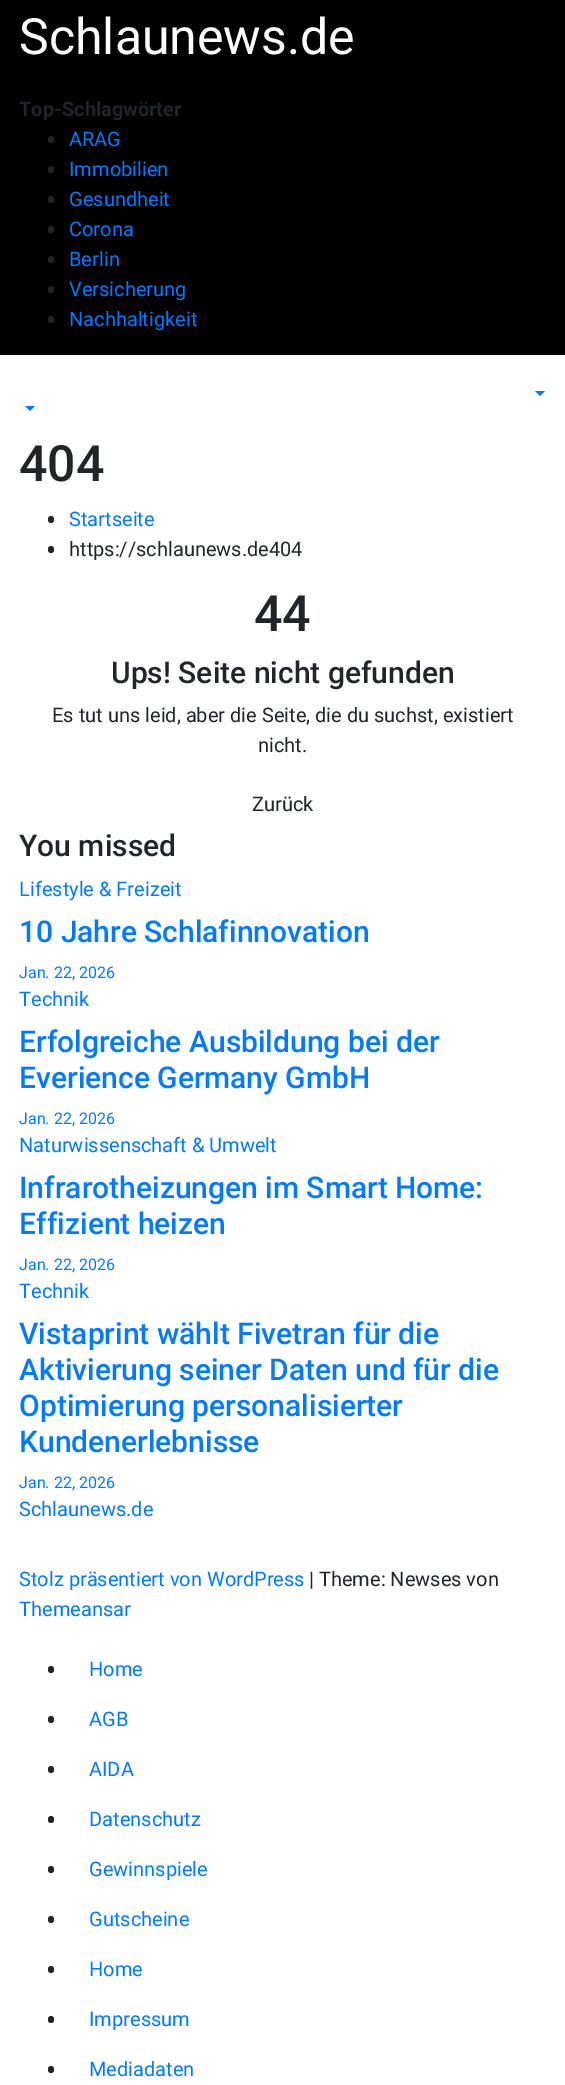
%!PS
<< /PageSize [565 2085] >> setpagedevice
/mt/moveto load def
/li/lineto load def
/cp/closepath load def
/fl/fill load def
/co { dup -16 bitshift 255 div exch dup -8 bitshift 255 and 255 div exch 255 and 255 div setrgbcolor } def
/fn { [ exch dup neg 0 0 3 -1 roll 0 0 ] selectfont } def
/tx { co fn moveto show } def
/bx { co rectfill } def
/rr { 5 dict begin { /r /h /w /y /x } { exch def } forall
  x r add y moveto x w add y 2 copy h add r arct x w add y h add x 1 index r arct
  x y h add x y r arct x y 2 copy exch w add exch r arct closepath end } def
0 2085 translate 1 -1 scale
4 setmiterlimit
0 0 565 2085 16#FFFFFF bx
0 0 565 355 16#000000 bx
16#212529 co
48 136 6 7 3 rr fl
48 166 6 7 3 rr fl
48 196 6 7 3 rr fl
48 226 6 7 3 rr fl
48 256 6 7 3 rr fl
48 286 6 7 3 rr fl
48 316 6 7 3 rr fl
16#007BFF co
535 391 mt 545 391 li 540 396 li cp fl
25 406 mt 35 406 li 30 411 li cp fl
16#212529 co
48 516 6 7 3 rr fl
48 546 6 7 3 rr fl
48 1666 6 7 3 rr fl
48 1716 6 7 3 rr fl
48 1766 6 7 3 rr fl
48 1816 6 7 3 rr fl
48 1866 6 7 3 rr fl
48 1916 6 7 3 rr fl
48 1966 6 7 3 rr fl
48 2016 6 7 3 rr fl
48 2066 6 7 3 rr fl
(Schlaunews.de) 19 54 /Roboto-Regular 50 16#FFFFFF tx
(Top-Schlagwörter) 19 116 /Roboto-Bold 20 16#212529 tx
(ARAG) 69 146 /Roboto-Regular 20 16#007BFF tx
(Immobilien) 69 176 /Roboto-Regular 20 16#007BFF tx
(Gesundheit) 69 206 /Roboto-Regular 20 16#007BFF tx
(Corona) 69 236 /Roboto-Regular 20 16#007BFF tx
(Berlin) 69 266 /Roboto-Regular 20 16#007BFF tx
(Versicherung) 69 296 /Roboto-Regular 20 16#007BFF tx
(Nachhaltigkeit) 69 326 /Roboto-Regular 20 16#007BFF tx
(404) 19 481 /Roboto-Medium 50 16#212529 tx
(Startseite) 69 526 /Roboto-Regular 20 16#007BFF tx
(https://schlaunews.de404) 69 556 /Roboto-Regular 20 16#212529 tx
(44) 254 631 /Roboto-Medium 50 16#212529 tx
(Ups! Seite nicht gefunden) 111 683 /Roboto-Medium 30 16#212529 tx
(Es tut uns leid, aber die Seite, die du suchst, existiert) 52 722 /Roboto-Regular 20 16#212529 tx
(nicht.) 258 752 /Roboto-Regular 20 16#212529 tx
(Zurück) 252 811 /Roboto-Regular 20 16#212529 tx
(You missed) 19 856 /Roboto-Medium 30 16#212529 tx
(Lifestyle & Freizeit) 19 896 /Roboto-Regular 20 16#007BFF tx
(10 Jahre Schlafinnovation) 19 942 /Roboto-Medium 30 16#007BFF tx
(Jan. 22, 2026) 19 978 /Roboto-Regular 16 16#007BFF tx
(Technik) 19 1006 /Roboto-Regular 20 16#007BFF tx
(Erfolgreiche Ausbildung bei der) 19 1052 /Roboto-Medium 30 16#007BFF tx
(Everience Germany GmbH) 19 1088 /Roboto-Medium 30 16#007BFF tx
(Jan. 22, 2026) 19 1124 /Roboto-Regular 16 16#007BFF tx
(Naturwissenschaft & Umwelt) 19 1152 /Roboto-Regular 20 16#007BFF tx
(Infrarotheizungen im Smart Home:) 19 1198 /Roboto-Medium 30 16#007BFF tx
(Effizient heizen) 19 1234 /Roboto-Medium 30 16#007BFF tx
(Jan. 22, 2026) 19 1270 /Roboto-Regular 16 16#007BFF tx
(Technik) 19 1298 /Roboto-Regular 20 16#007BFF tx
(Vistaprint wählt Fivetran für die) 19 1344 /Roboto-Medium 30 16#007BFF tx
(Aktivierung seiner Daten und für die) 19 1380 /Roboto-Medium 30 16#007BFF tx
(Optimierung personalisierter) 19 1416 /Roboto-Medium 30 16#007BFF tx
(Kundenerlebnisse) 19 1452 /Roboto-Medium 30 16#007BFF tx
(Jan. 22, 2026) 19 1488 /Roboto-Regular 16 16#007BFF tx
(Schlaunews.de) 19 1516 /Roboto-Regular 20 16#007BFF tx
(Stolz präsentiert von WordPress) 19 1586 /Roboto-Regular 20 16#007BFF tx
(| Theme: Newses von) 309 1586 /Roboto-Regular 20 16#212529 tx
(Themeansar) 19 1616 /Roboto-Regular 20 16#007BFF tx
(Home) 89 1676 /Roboto-Regular 20 16#007BFF tx
(AGB) 89 1726 /Roboto-Regular 20 16#007BFF tx
(AIDA) 89 1776 /Roboto-Regular 20 16#007BFF tx
(Datenschutz) 89 1826 /Roboto-Regular 20 16#007BFF tx
(Gewinnspiele) 89 1876 /Roboto-Regular 20 16#007BFF tx
(Gutscheine) 89 1926 /Roboto-Regular 20 16#007BFF tx
(Home) 89 1976 /Roboto-Regular 20 16#007BFF tx
(Impressum) 89 2026 /Roboto-Regular 20 16#007BFF tx
(Mediadaten) 89 2076 /Roboto-Regular 20 16#007BFF tx
showpage
